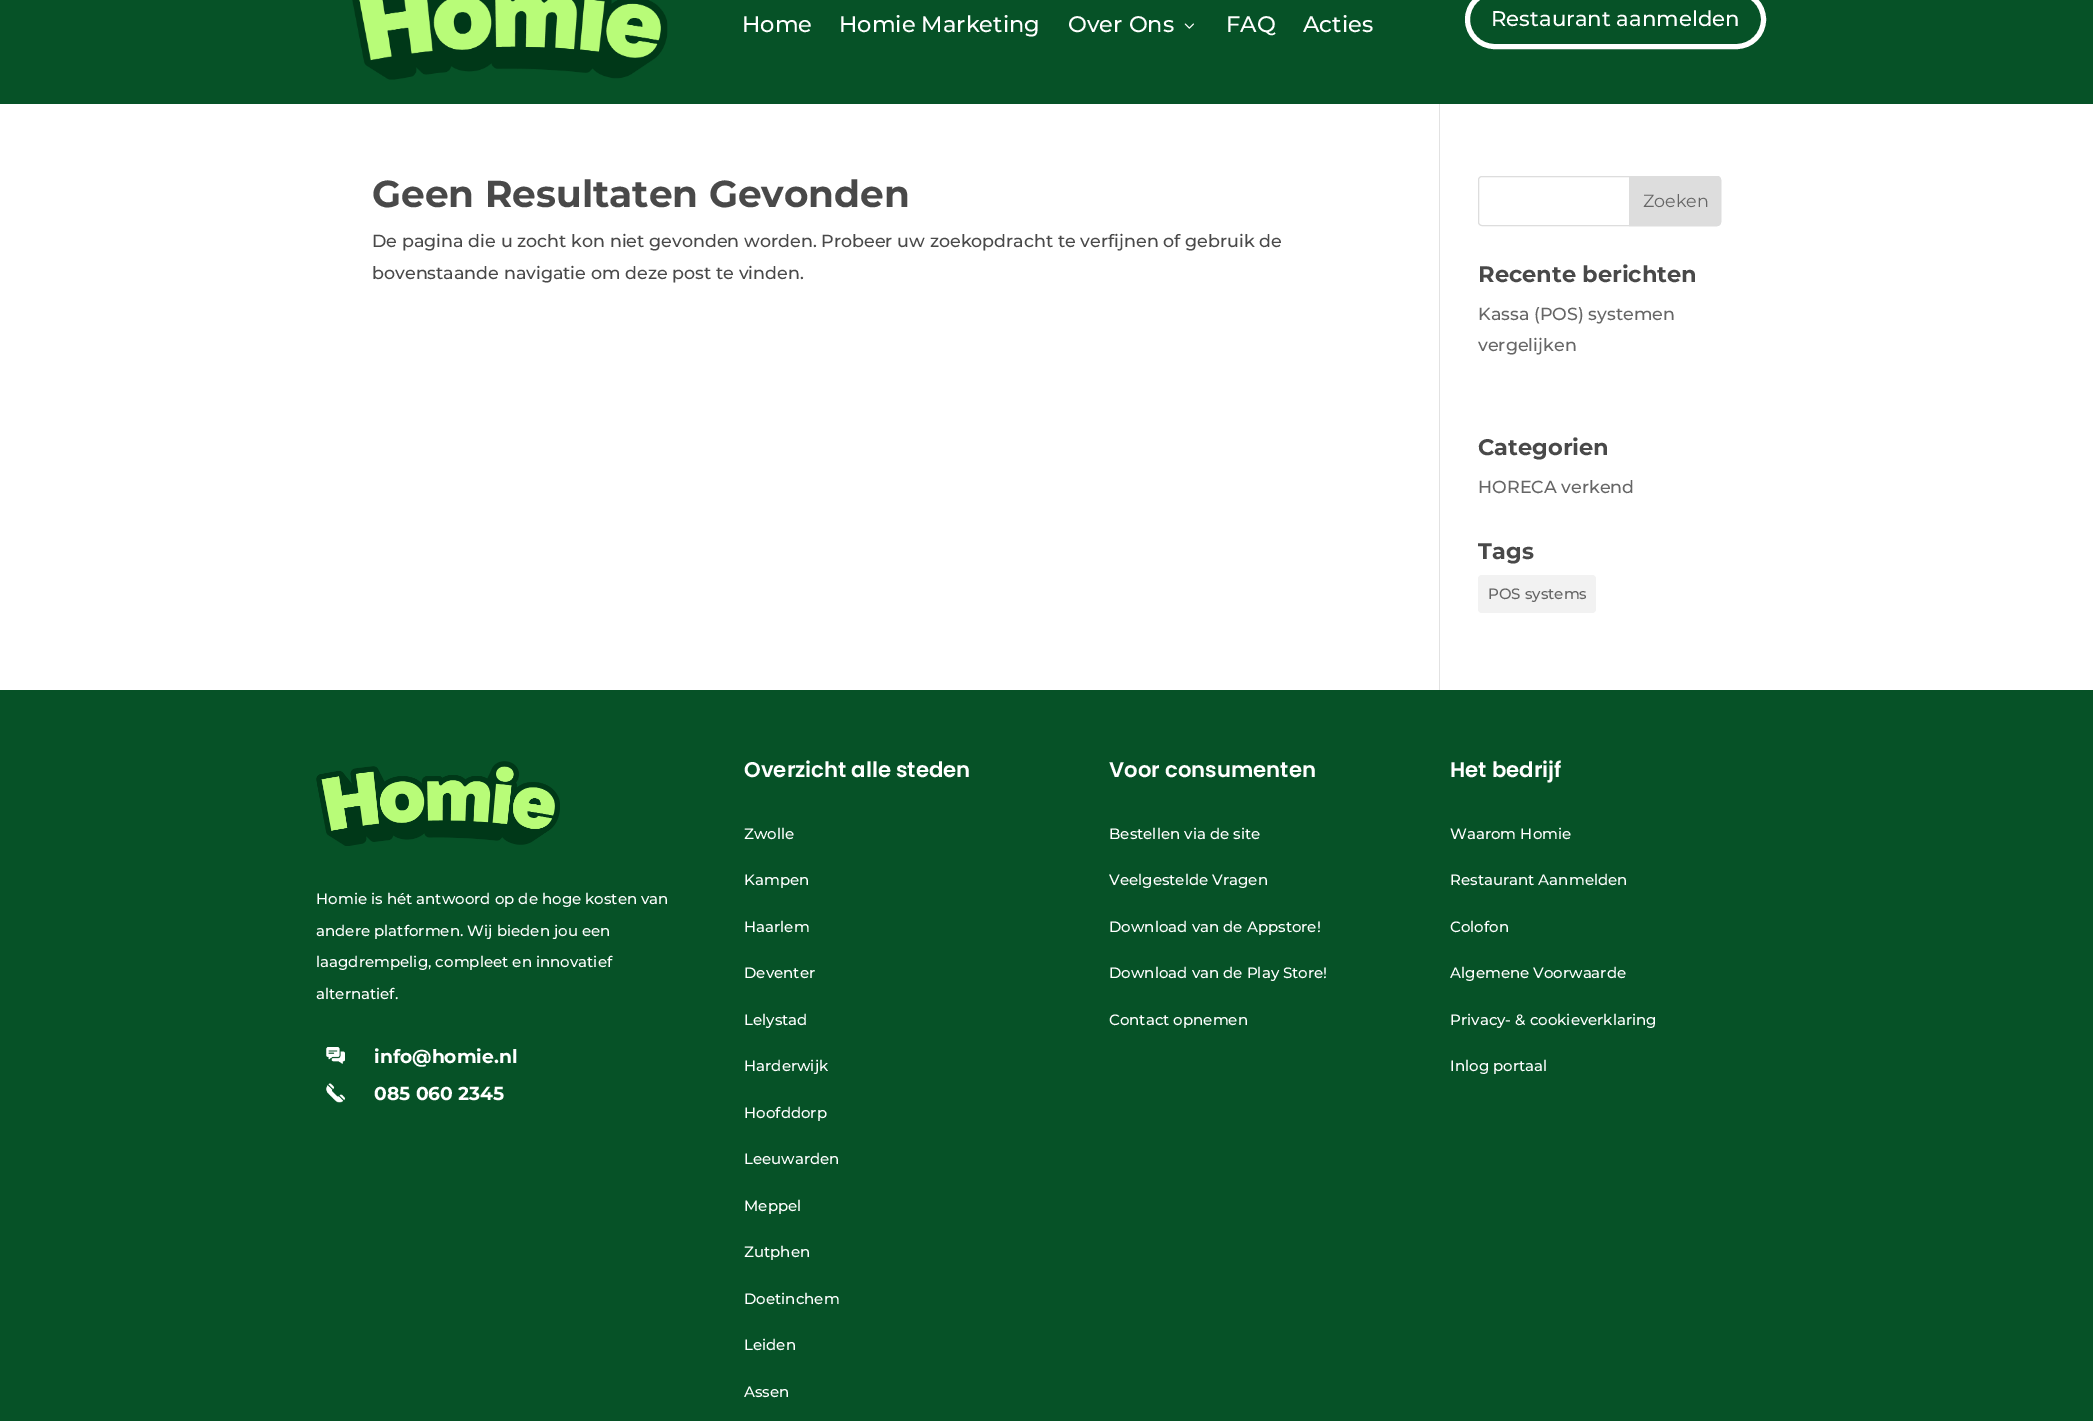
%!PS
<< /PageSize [2093 1421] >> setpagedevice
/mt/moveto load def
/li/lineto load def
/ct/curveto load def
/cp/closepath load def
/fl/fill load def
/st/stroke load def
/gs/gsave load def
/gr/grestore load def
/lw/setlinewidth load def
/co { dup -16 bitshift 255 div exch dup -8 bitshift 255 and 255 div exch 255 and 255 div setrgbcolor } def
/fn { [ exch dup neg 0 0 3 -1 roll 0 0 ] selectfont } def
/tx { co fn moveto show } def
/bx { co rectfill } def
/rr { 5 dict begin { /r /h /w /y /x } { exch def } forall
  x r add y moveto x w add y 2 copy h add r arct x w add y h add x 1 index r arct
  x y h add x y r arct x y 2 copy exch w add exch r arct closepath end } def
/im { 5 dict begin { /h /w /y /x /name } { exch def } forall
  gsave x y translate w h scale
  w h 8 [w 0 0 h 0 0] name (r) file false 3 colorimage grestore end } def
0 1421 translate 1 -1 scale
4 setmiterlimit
0 0 2093 1421 16#FFFFFF bx
0 0 2093 104 16#065227 bx
(media/1.raw) 352 0 316 80 im
(media/2.raw) 1184 23 10 6 im
16#FFFFFF co
5 lw
1467.5 -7.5 296 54 27 rr st
1439 104 1 586 16#E2E2E2 bx
16#DDDDDD co
1 lw
1478.5 176.5 242 49 3.5 rr st
1629.5 176.5 mt 1717 176.5 li 1719 176.5 1720.5 178 1720.5 180 ct 1720.5 222 li 1720.5 224 1719 225.5 1717 225.5 ct 1629.5 225.5 li cp gs fl gr
st
16#F2F2F2 co
1478 575 118 38 4 rr fl
0 690 2093 731 16#065227 bx
(media/3.raw) 316 761 244 85 im
(media/4.raw) 326 1047 19 17 im
(media/5.raw) 326 1083 19 20 im
(Home) 742 32 /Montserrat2-Thin 22.5 16#FFFFFF tx
(Homie Marketing) 839 32 /Montserrat2-Thin 22.5 16#FFFFFF tx
(Over Ons) 1068 32 /Montserrat2-Thin 22.5 16#FFFFFF tx
(FAQ) 1226 32 /Montserrat2-Thin 22.5 16#FFFFFF tx
(Acties) 1303 32 /Montserrat2-Thin 22.5 16#FFFFFF tx
(Restaurant aanmelden) 1491 26 /Montserrat2-Thin 21.25 16#FFFFFF tx
(Geen Resultaten Gevonden) 372 207 /Montserrat-Thin 37.5 16#494949 tx
(De pagina die u zocht kon niet gevonden worden. Probeer uw zoekopdracht te verfijnen of gebruik de) 372 247 /Montserrat2-Thin 17.5 16#494949 tx
(bovenstaande navigatie om deze post te vinden.) 372 279 /Montserrat2-Thin 17.5 16#494949 tx
(Zoeken) 1643 207 /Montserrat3-Thin 17.5 16#666666 tx
(Recente berichten) 1478 282 /Montserrat-Thin 22.5 16#494949 tx
(Kassa \(POS\) systemen) 1478 320 /Montserrat2-Thin 17.5 16#666666 tx
(vergelijken) 1478 351 /Montserrat2-Thin 17.5 16#666666 tx
(Categorien) 1478 455 /Montserrat-Thin 22.5 16#494949 tx
(HORECA verkend) 1478 493 /Montserrat2-Thin 17.5 16#666666 tx
(Tags) 1478 559 /Montserrat-Thin 22.5 16#494949 tx
(POS systems) 1488 599 /Montserrat2-Thin 15 16#666666 tx
(Homie is hét antwoord op de hoge kosten van) 316 904 /Montserrat2-Thin 15 16#FFFFFF tx
(andere platformen. Wij bieden jou een) 316 936 /Montserrat2-Thin 15 16#FFFFFF tx
(laagdrempelig, compleet en innovatief) 316 967 /Montserrat2-Thin 15 16#FFFFFF tx
(alternatief.) 316 999 /Montserrat2-Thin 15 16#FFFFFF tx
(info@homie.nl) 374 1063 /Montserrat-Thin 18.75 16#FFFFFF tx
(085 060 2345) 374 1100 /Montserrat-Thin 18.75 16#FFFFFF tx
(Overzicht alle steden) 744 777 /Poppins-SemiBold 21.25 16#FFFFFF tx
(Zwolle) 744 839 /Montserrat2-Thin 15 16#FFFFFF tx
(Kampen) 744 885 /Montserrat2-Thin 15 16#FFFFFF tx
(Haarlem) 744 932 /Montserrat2-Thin 15 16#FFFFFF tx
(Deventer) 744 978 /Montserrat2-Thin 15 16#FFFFFF tx
(Lelystad) 744 1025 /Montserrat2-Thin 15 16#FFFFFF tx
(Harderwijk) 744 1071 /Montserrat2-Thin 15 16#FFFFFF tx
(Hoofddorp) 744 1118 /Montserrat2-Thin 15 16#FFFFFF tx
(Leeuwarden) 744 1164 /Montserrat2-Thin 15 16#FFFFFF tx
(Meppel) 744 1211 /Montserrat2-Thin 15 16#FFFFFF tx
(Zutphen) 744 1257 /Montserrat2-Thin 15 16#FFFFFF tx
(Doetinchem) 744 1304 /Montserrat2-Thin 15 16#FFFFFF tx
(Leiden) 744 1350 /Montserrat2-Thin 15 16#FFFFFF tx
(Assen) 744 1397 /Montserrat2-Thin 15 16#FFFFFF tx
(Voor consumenten) 1109 777 /Poppins-SemiBold 21.25 16#FFFFFF tx
(Bestellen via de site) 1109 839 /Montserrat2-Thin 15 16#FFFFFF tx
(Veelgestelde Vragen) 1109 885 /Montserrat2-Thin 15 16#FFFFFF tx
(Download van de Appstore!) 1109 932 /Montserrat2-Thin 15 16#FFFFFF tx
(Download van de Play Store!) 1109 978 /Montserrat2-Thin 15 16#FFFFFF tx
(Contact opnemen) 1109 1025 /Montserrat2-Thin 15 16#FFFFFF tx
(Het bedrijf) 1450 777 /Poppins-SemiBold 21.25 16#FFFFFF tx
(Waarom Homie) 1450 839 /Montserrat2-Thin 15 16#FFFFFF tx
(Restaurant Aanmelden) 1450 885 /Montserrat2-Thin 15 16#FFFFFF tx
(Colofon) 1450 932 /Montserrat2-Thin 15 16#FFFFFF tx
(Algemene Voorwaarde) 1450 978 /Montserrat2-Thin 15 16#FFFFFF tx
(Privacy- & cookieverklaring) 1450 1025 /Montserrat2-Thin 15 16#FFFFFF tx
(Inlog portaal) 1450 1071 /Montserrat2-Thin 15 16#FFFFFF tx
showpage
